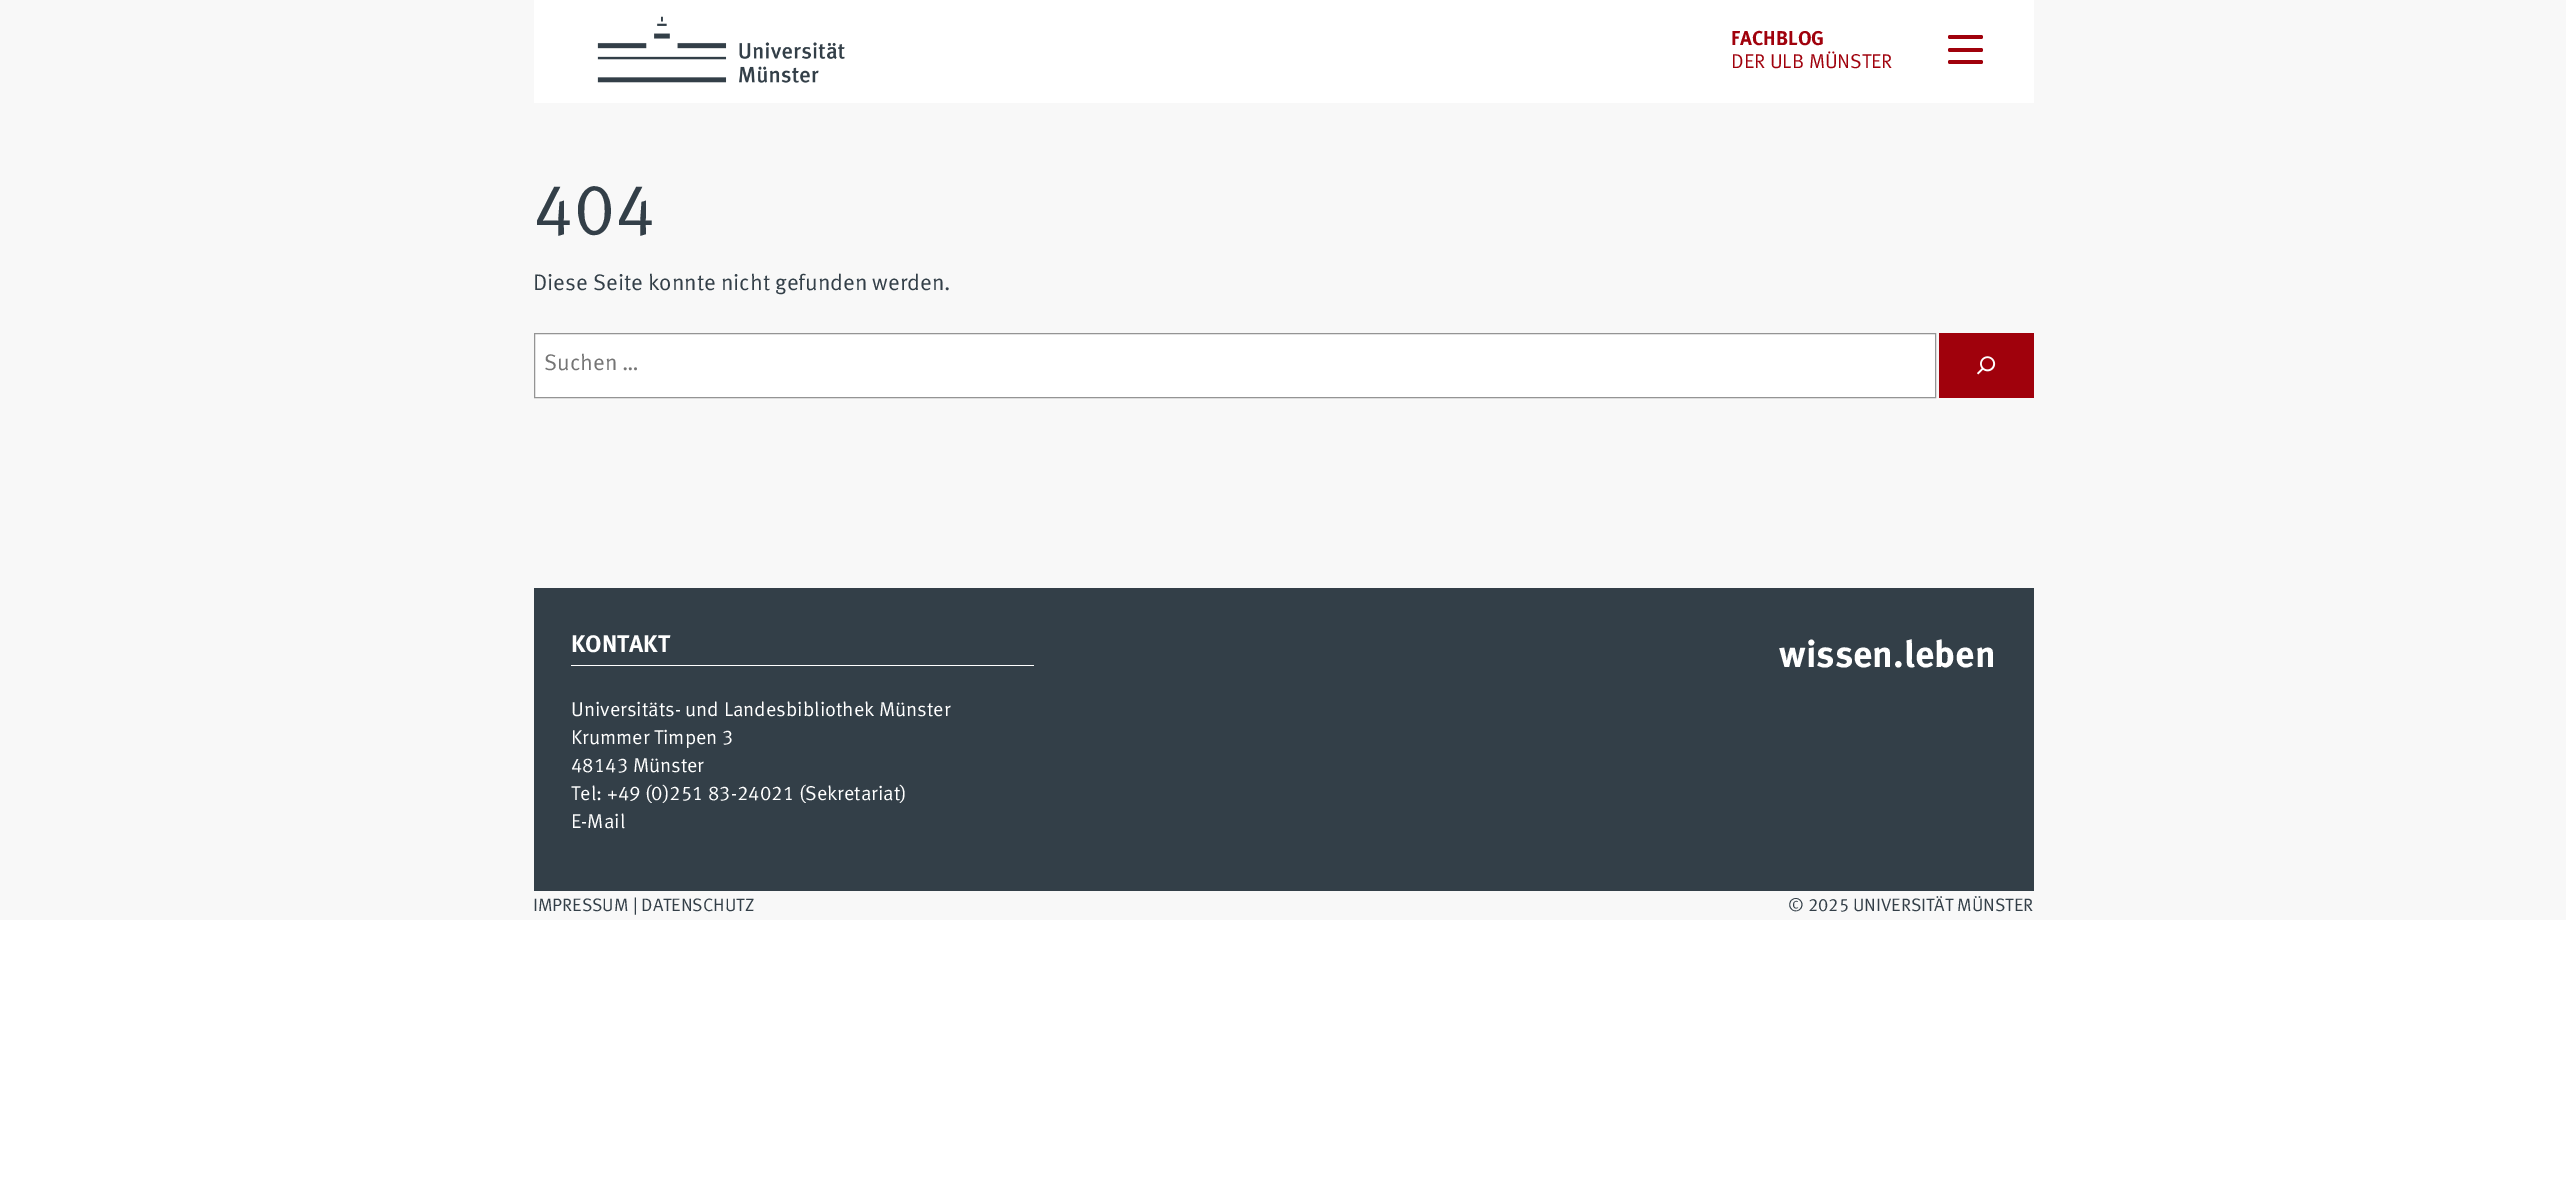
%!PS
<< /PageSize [2566 1177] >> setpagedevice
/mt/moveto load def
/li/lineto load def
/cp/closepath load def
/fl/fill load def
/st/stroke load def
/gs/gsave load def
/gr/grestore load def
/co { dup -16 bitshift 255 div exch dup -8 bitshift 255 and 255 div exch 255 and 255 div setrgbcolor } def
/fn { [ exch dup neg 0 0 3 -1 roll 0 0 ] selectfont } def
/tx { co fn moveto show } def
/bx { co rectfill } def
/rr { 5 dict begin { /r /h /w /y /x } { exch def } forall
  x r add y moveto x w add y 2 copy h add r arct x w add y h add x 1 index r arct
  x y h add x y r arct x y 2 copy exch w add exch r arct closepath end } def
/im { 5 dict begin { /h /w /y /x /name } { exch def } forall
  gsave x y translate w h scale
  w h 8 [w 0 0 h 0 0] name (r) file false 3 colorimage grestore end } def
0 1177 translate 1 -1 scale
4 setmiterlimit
0 0 2566 1177 16#FFFFFF bx
0 0 2566 920 16#F8F8F8 bx
534 0 1500 103 16#FFFFFF bx
(media/1.raw) 597 16 248 67 im
16#A0010C co
1948 35 35 4 2 rr fl
1948 48 35 4 2 rr fl
1948 60 35 4 2 rr fl
16#FFFFFF co
534.5 333.5 mt 1935.5 333.5 li 1935.5 397.5 li 534.5 397.5 li cp gs fl gr
16#949494 co
st
1939 333 95 65 16#A0010C bx
(media/2.raw) 1977 356 19 19 im
534 588 1500 303 16#333F48 bx
571 665 463 1 16#FFFFFF bx
(FACHBLOG) 1731 45 /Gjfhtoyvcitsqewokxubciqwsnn-Bold 20 16#A0010C tx
(DER ULB MÜNSTER) 1731 68 /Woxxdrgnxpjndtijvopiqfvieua-Regular 20 16#A0010C tx
(404) 533 234 /Woxxdrgnxpjndtijvopiqfvieua-Regular 72 16#333F48 tx
(Diese Seite konnte nicht gefunden werden.) 533 290 /Woxxdrgnxpjndtijvopiqfvieua-Regular 22.5 16#333F48 tx
(Suchen …) 544 370 /Woxxdrgnxpjndtijvopiqfvieua-Regular 22.5 16#757575 tx
(KONTAKT) 571 652 /Gjfhtoyvcitsqewokxubciqwsnn-Bold 24 16#FFFFFF tx
(Universitäts- und Landesbibliothek Münster) 571 716 /Woxxdrgnxpjndtijvopiqfvieua-Regular 20 16#FFFFFF tx
(Krummer Timpen 3) 571 744 /Woxxdrgnxpjndtijvopiqfvieua-Regular 20 16#FFFFFF tx
(48143 Münster) 571 772 /Woxxdrgnxpjndtijvopiqfvieua-Regular 20 16#FFFFFF tx
(Tel: +49 \(0\)251 83-24021 \(Sekretariat\)) 571 800 /Woxxdrgnxpjndtijvopiqfvieua-Regular 20 16#FFFFFF tx
(E-Mail) 571 828 /Woxxdrgnxpjndtijvopiqfvieua-Regular 20 16#FFFFFF tx
(wissen.leben) 1779 667 /Gjfhtoyvcitsqewokxubciqwsnn-Bold 37.5 16#FFFFFF tx
(IMPRESSUM | DATENSCHUTZ) 533 911 /Woxxdrgnxpjndtijvopiqfvieua-Regular 18 16#333F48 tx
(© 2025 UNIVERSITÄT MÜNSTER) 1788 911 /Woxxdrgnxpjndtijvopiqfvieua-Regular 18 16#333F48 tx
showpage
